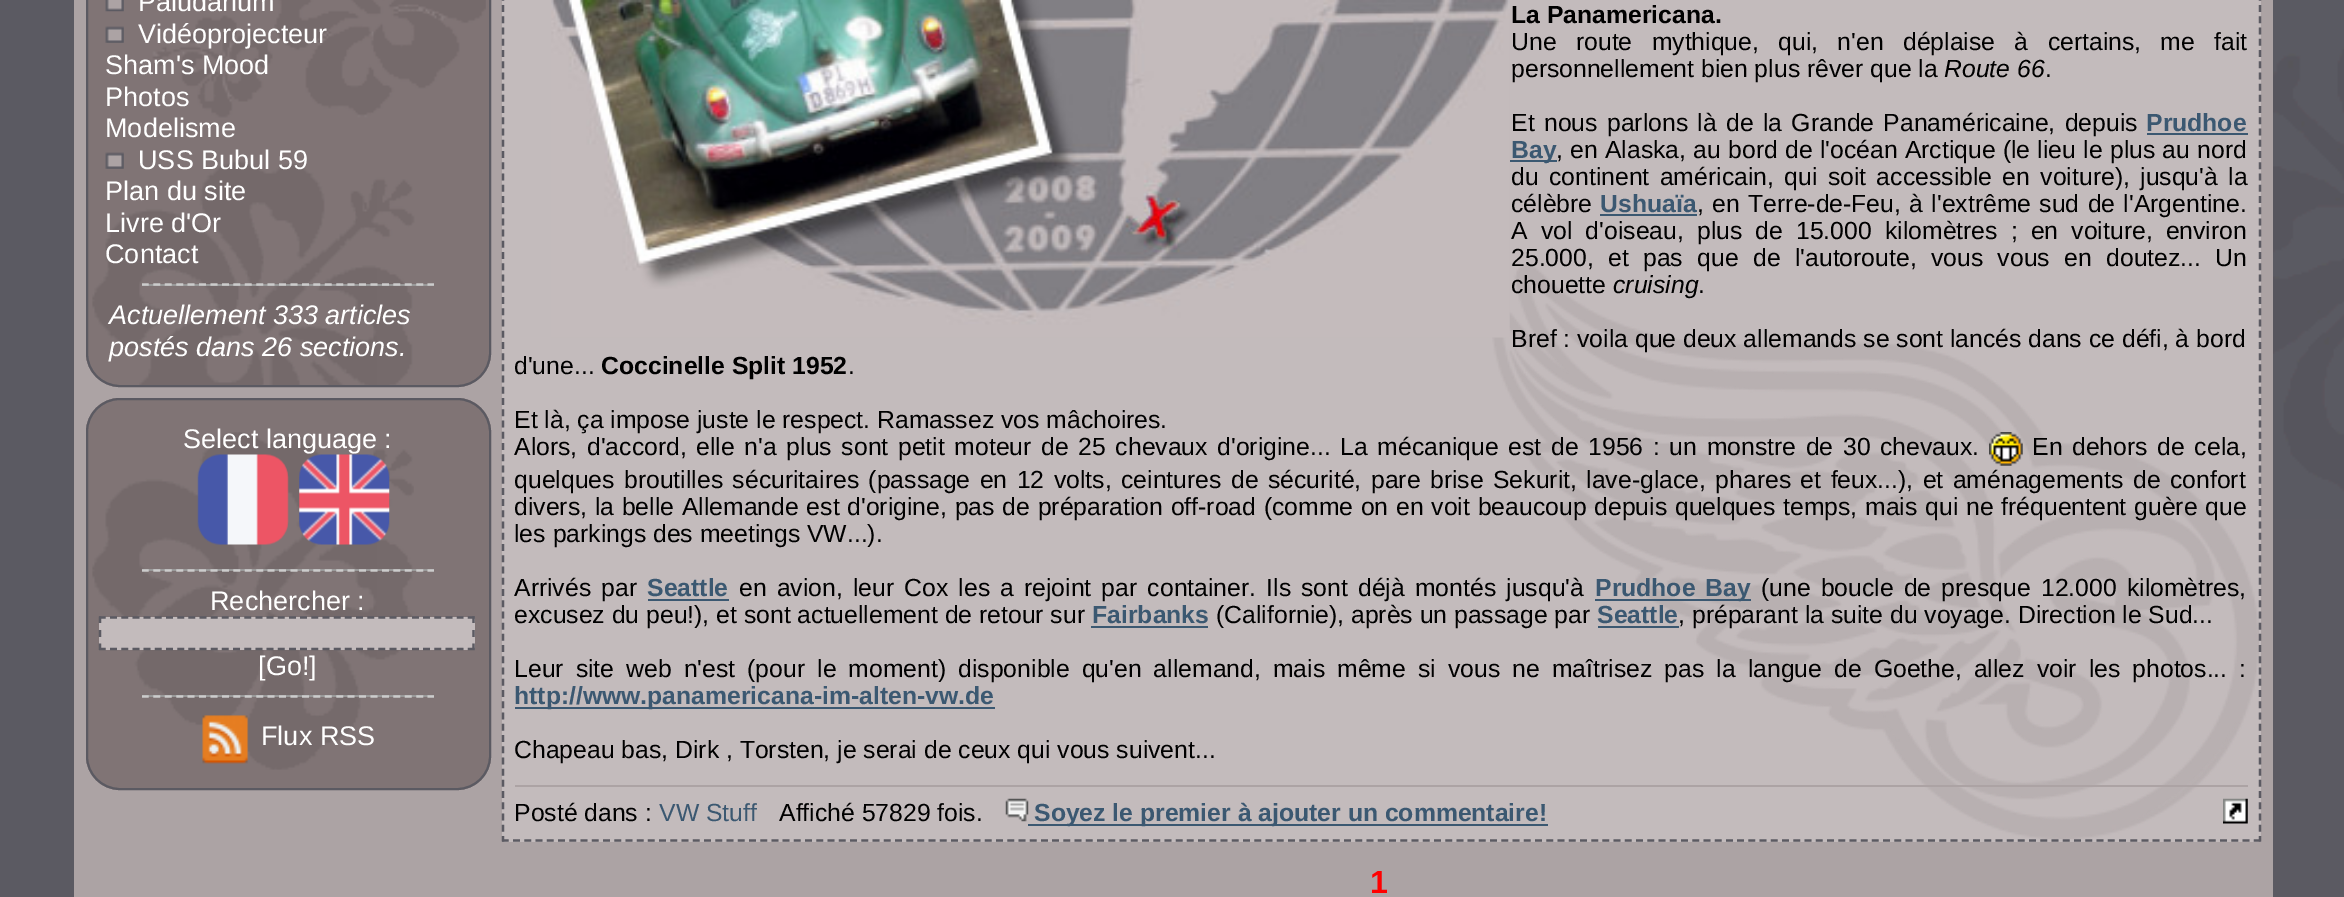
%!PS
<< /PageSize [2344 897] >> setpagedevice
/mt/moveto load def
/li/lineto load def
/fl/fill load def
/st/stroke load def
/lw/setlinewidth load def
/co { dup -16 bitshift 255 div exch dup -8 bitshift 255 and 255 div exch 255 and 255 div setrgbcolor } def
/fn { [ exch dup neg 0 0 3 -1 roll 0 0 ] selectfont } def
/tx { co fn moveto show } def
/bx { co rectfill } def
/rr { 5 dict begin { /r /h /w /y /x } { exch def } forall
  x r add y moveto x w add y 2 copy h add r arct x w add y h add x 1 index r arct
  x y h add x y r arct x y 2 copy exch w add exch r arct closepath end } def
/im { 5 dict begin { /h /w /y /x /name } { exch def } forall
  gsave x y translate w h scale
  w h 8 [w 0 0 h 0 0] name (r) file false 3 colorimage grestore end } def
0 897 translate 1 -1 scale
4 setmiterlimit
0 0 2344 897 16#5B5A62 bx
(media/1.raw) 2273 0 71 519 im
74 0 2199 897 16#ACA3A4 bx
16#807475 co
86 -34 405 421 34 rr fl
(media/2.raw) 92 0 394 385 im
16#5B5A62 co
2 lw
87 -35 403 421 33 rr st
(media/3.raw) 105 0 19 12 im
(media/4.raw) 105 26 19 17 im
(media/4.raw) 105 152 19 17 im
142 284 292 2 16#999999 bx
16#CCCCCC co
2.2 lw
[6.75 4.68] 0 setdash
142 284.5 mt 434 284.5 li st
16#807475 co
86 398 405 392 34 rr fl
(media/5.raw) 92 432 322 338 im
16#5B5A62 co
2 lw
[] 0 setdash
87 399 403 390 33 rr st
(media/6.raw) 197 454 92 91 im
(media/7.raw) 299 454 91 91 im
142 569 292 2 16#999999 bx
16#CCCCCC co
2.2 lw
[6.75 4.68] 0 setdash
142 570.5 mt 434 570.5 li st
99 617 376 33 16#C3BBBC bx
16#5B5A62 co
[6.75 4.43] 0 setdash
99 617.5 mt 475 617.5 li st
[] 0 setdash
473.5 616.5 mt 473.5 623 li 473.5 630 mt 473.5 637 li 473.5 643.5 mt 473.5 650 li st
[6.75 4.43] 0 setdash
99 649 mt 475 649 li st
[] 0 setdash
100 616.5 mt 100 623 li 100 630 mt 100 637 li 100 643.5 mt 100 650 li st
142 695 292 2 16#999999 bx
16#CCCCCC co
[6.75 4.68] 0 setdash
142 696.5 mt 434 696.5 li st
(media/8.raw) 202 715 47 49 im
502 0 1759 842 16#C3BBBC bx
(media/9.raw) 1492 265 767 574 im
16#5B5A62 co
[6.75 4.48] 0 setdash
2260 -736 mt 2260 841.5 li st
502 840.5 mt 2261 840.5 li st
503 -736 mt 503 841.5 li st
(media/10.raw) 551 0 959 338 im
2147 133 101 2 16#3B5871 bx
1510 160 47 2 16#3B5871 bx
1600 214 97 2 16#3B5871 bx
(media/11.raw) 1989 432 34 34 im
648 599 81 2 16#3B5871 bx
1595 599 156 2 16#3B5871 bx
1091 626 117 2 16#3B5871 bx
1598 626 81 2 16#3B5871 bx
515 707 480 2 16#3B5871 bx
515 785 1733 2 16#ACA3A4 bx
(media/12.raw) 1005 798 24 24 im
1028 824 520 2 16#3B5871 bx
(media/13.raw) 2223 798 25 26 im
(Paludarium) 138 11 /LiberationSans-Regular 27 16#FFFFFF tx
(Vidéoprojecteur) 138 43 /LiberationSans-Regular 27 16#FFFFFF tx
(Sham's Mood) 105 74 /LiberationSans-Regular 27 16#FFFFFF tx
(Photos) 105 106 /LiberationSans-Regular 27 16#FFFFFF tx
(Modelisme) 105 137 /LiberationSans-Regular 27 16#FFFFFF tx
(USS Bubul 59) 138 169 /LiberationSans-Regular 27 16#FFFFFF tx
(Plan du site) 105 200 /LiberationSans-Regular 27 16#FFFFFF tx
(Livre d'Or) 105 232 /LiberationSans-Regular 27 16#FFFFFF tx
(Contact) 105 263 /LiberationSans-Regular 27 16#FFFFFF tx
(Actuellement 333 articles) 109 324 /LiberationSans-Italic 27 16#FFFFFF tx
(postés dans 26 sections.) 109 356 /LiberationSans-Italic 27 16#FFFFFF tx
(Select language :) 183 448 /LiberationSans-Regular 27 16#FFFFFF tx
(Rechercher :) 210 610 /LiberationSans-Regular 27 16#FFFFFF tx
([Go!]) 258 675 /LiberationSans-Regular 27 16#FFFFFF tx
(Flux RSS) 261 745 /LiberationSans-Regular 27 16#FFFFFF tx
(La Panamericana.) 1511 23 /LiberationSans-Bold 24.75 16#000000 tx
/LiberationSans-Regular 24.75 fn
1511 50 mt 12.5 0 32 (Une route mythique, qui, n'en déplaise à certains, me fait) widthshow
(personnellement bien plus rêver que la) 1511 77 /LiberationSans-Regular 24.75 16#000000 tx
(Route 66) 1944 77 /LiberationSans-Italic 24.75 16#000000 tx
(.) 2045 77 /LiberationSans-Regular 24.75 16#000000 tx
1511 131 mt 2.5 0 32 (Et nous parlons là de la Grande Panaméricaine, depuis) widthshow
(Prudhoe) 2146 131 /LiberationSans-Bold 24.75 16#3B5871 tx
(Bay) 1511 158 /LiberationSans-Bold 24.75 16#3B5871 tx
/LiberationSans-Regular 24.75 fn
16#000000 co
1556 158 mt .4 0 32 (, en Alaska, au bord de l'océan Arctique \(le lieu le plus au nord) widthshow
1511 185 mt 3.5 0 32 (du continent américain, qui soit accessible en voiture\), jusqu'à la) widthshow
(célèbre) 1511 212 /LiberationSans-Regular 24.75 16#000000 tx
(Ushuaïa) 1600 212 /LiberationSans-Bold 24.75 16#3B5871 tx
/LiberationSans-Regular 24.75 fn
16#000000 co
1697 212 mt 1.5 0 32 (, en Terre-de-Feu, à l'extrême sud de l'Argentine.) widthshow
1511 239 mt 6.25 0 32 (A vol d'oiseau, plus de 15.000 kilomètres ; en voiture, environ) widthshow
1511 266 mt 7.5 0 32 (25.000, et pas que de l'autoroute, vous vous en doutez... Un) widthshow
(chouette) 1511 293 /LiberationSans-Regular 24.75 16#000000 tx
(cruising) 1613 293 /LiberationSans-Italic 24.75 16#000000 tx
(.) 1698 293 /LiberationSans-Regular 24.75 16#000000 tx
(Bref : voila que deux allemands se sont lancés dans ce défi, à bord) 1511 347 /LiberationSans-Regular 24.75 16#000000 tx
(d'une...) 514 374 /LiberationSans-Regular 24.75 16#000000 tx
(Coccinelle Split 1952) 601 374 /LiberationSans-Bold 24.75 16#000000 tx
(.) 848 374 /LiberationSans-Regular 24.75 16#000000 tx
(Et là, ça impose juste le respect. Ramassez vos mâchoires.) 514 428 /LiberationSans-Regular 24.75 16#000000 tx
514 455 mt 2.8 0 32 (Alors, d'accord, elle n'a plus sont petit moteur de 25 chevaux d'origine... La mécanique est de 1956 : un monstre de 30 chevaux.) widthshow
2032 455 mt 2.8 0 32 (En dehors de cela,) widthshow
514 488 mt 2.6 0 32 (quelques broutilles sécuritaires \(passage en 12 volts, ceintures de sécurité, pare brise Sekurit, lave-glace, phares et feux...\), et aménagements de confort) widthshow
514 515 mt .9 0 32 (divers, la belle Allemande est d'origine, pas de préparation off-road \(comme on en voit beaucoup depuis quelques temps, mais qui ne fréquentent guère que) widthshow
(les parkings des meetings VW...\).) 514 542 /LiberationSans-Regular 24.75 16#000000 tx
514 596 mt 3.25 0 32 (Arrivés par) widthshow
(Seattle) 647 596 /LiberationSans-Bold 24.75 16#3B5871 tx
/LiberationSans-Regular 24.75 fn
16#000000 co
739 596 mt 3.25 0 32 (en avion, leur Cox les a rejoint par container. Ils sont déjà montés jusqu'à) widthshow
/LiberationSans-Bold 24.75 fn
16#3B5871 co
1595 596 mt 3.25 0 32 (Prudhoe Bay) widthshow
/LiberationSans-Regular 24.75 fn
16#000000 co
1761 596 mt 3.25 0 32 (\(une boucle de presque 12.000 kilomètres,) widthshow
(excusez du peu!\), et sont actuellement de retour sur) 514 623 /LiberationSans-Regular 24.75 16#000000 tx
(Fairbanks) 1092 623 /LiberationSans-Bold 24.75 16#3B5871 tx
(\(Californie\), après un passage par) 1216 623 /LiberationSans-Regular 24.75 16#000000 tx
(Seattle) 1597 623 /LiberationSans-Bold 24.75 16#3B5871 tx
(, préparant la suite du voyage. Direction le Sud...) 1678 623 /LiberationSans-Regular 24.75 16#000000 tx
514 677 mt 5.2 0 32 (Leur site web n'est \(pour le moment\) disponible qu'en allemand, mais même si vous ne maîtrisez pas la langue de Goethe, allez voir les photos... :) widthshow
(http://www.panamericana-im-alten-vw.de) 514 704 /LiberationSans-Bold 24.75 16#3B5871 tx
(Chapeau bas, Dirk , Torsten, je serai de ceux qui vous suivent...) 514 758 /LiberationSans-Regular 24.75 16#000000 tx
(Posté dans :) 514 821 /LiberationSans-Regular 24.75 16#000000 tx
(VW Stuff) 659 821 /LiberationSans-Regular 24.75 16#3B5871 tx
(Affiché 57829 fois.) 779 821 /LiberationSans-Regular 24.75 16#000000 tx
(Soyez le premier à ajouter un commentaire!) 1034 821 /LiberationSans-Bold 24.75 16#3B5871 tx
(1) 1370 893 /LiberationSans-Bold 32 16#FF0000 tx
showpage
